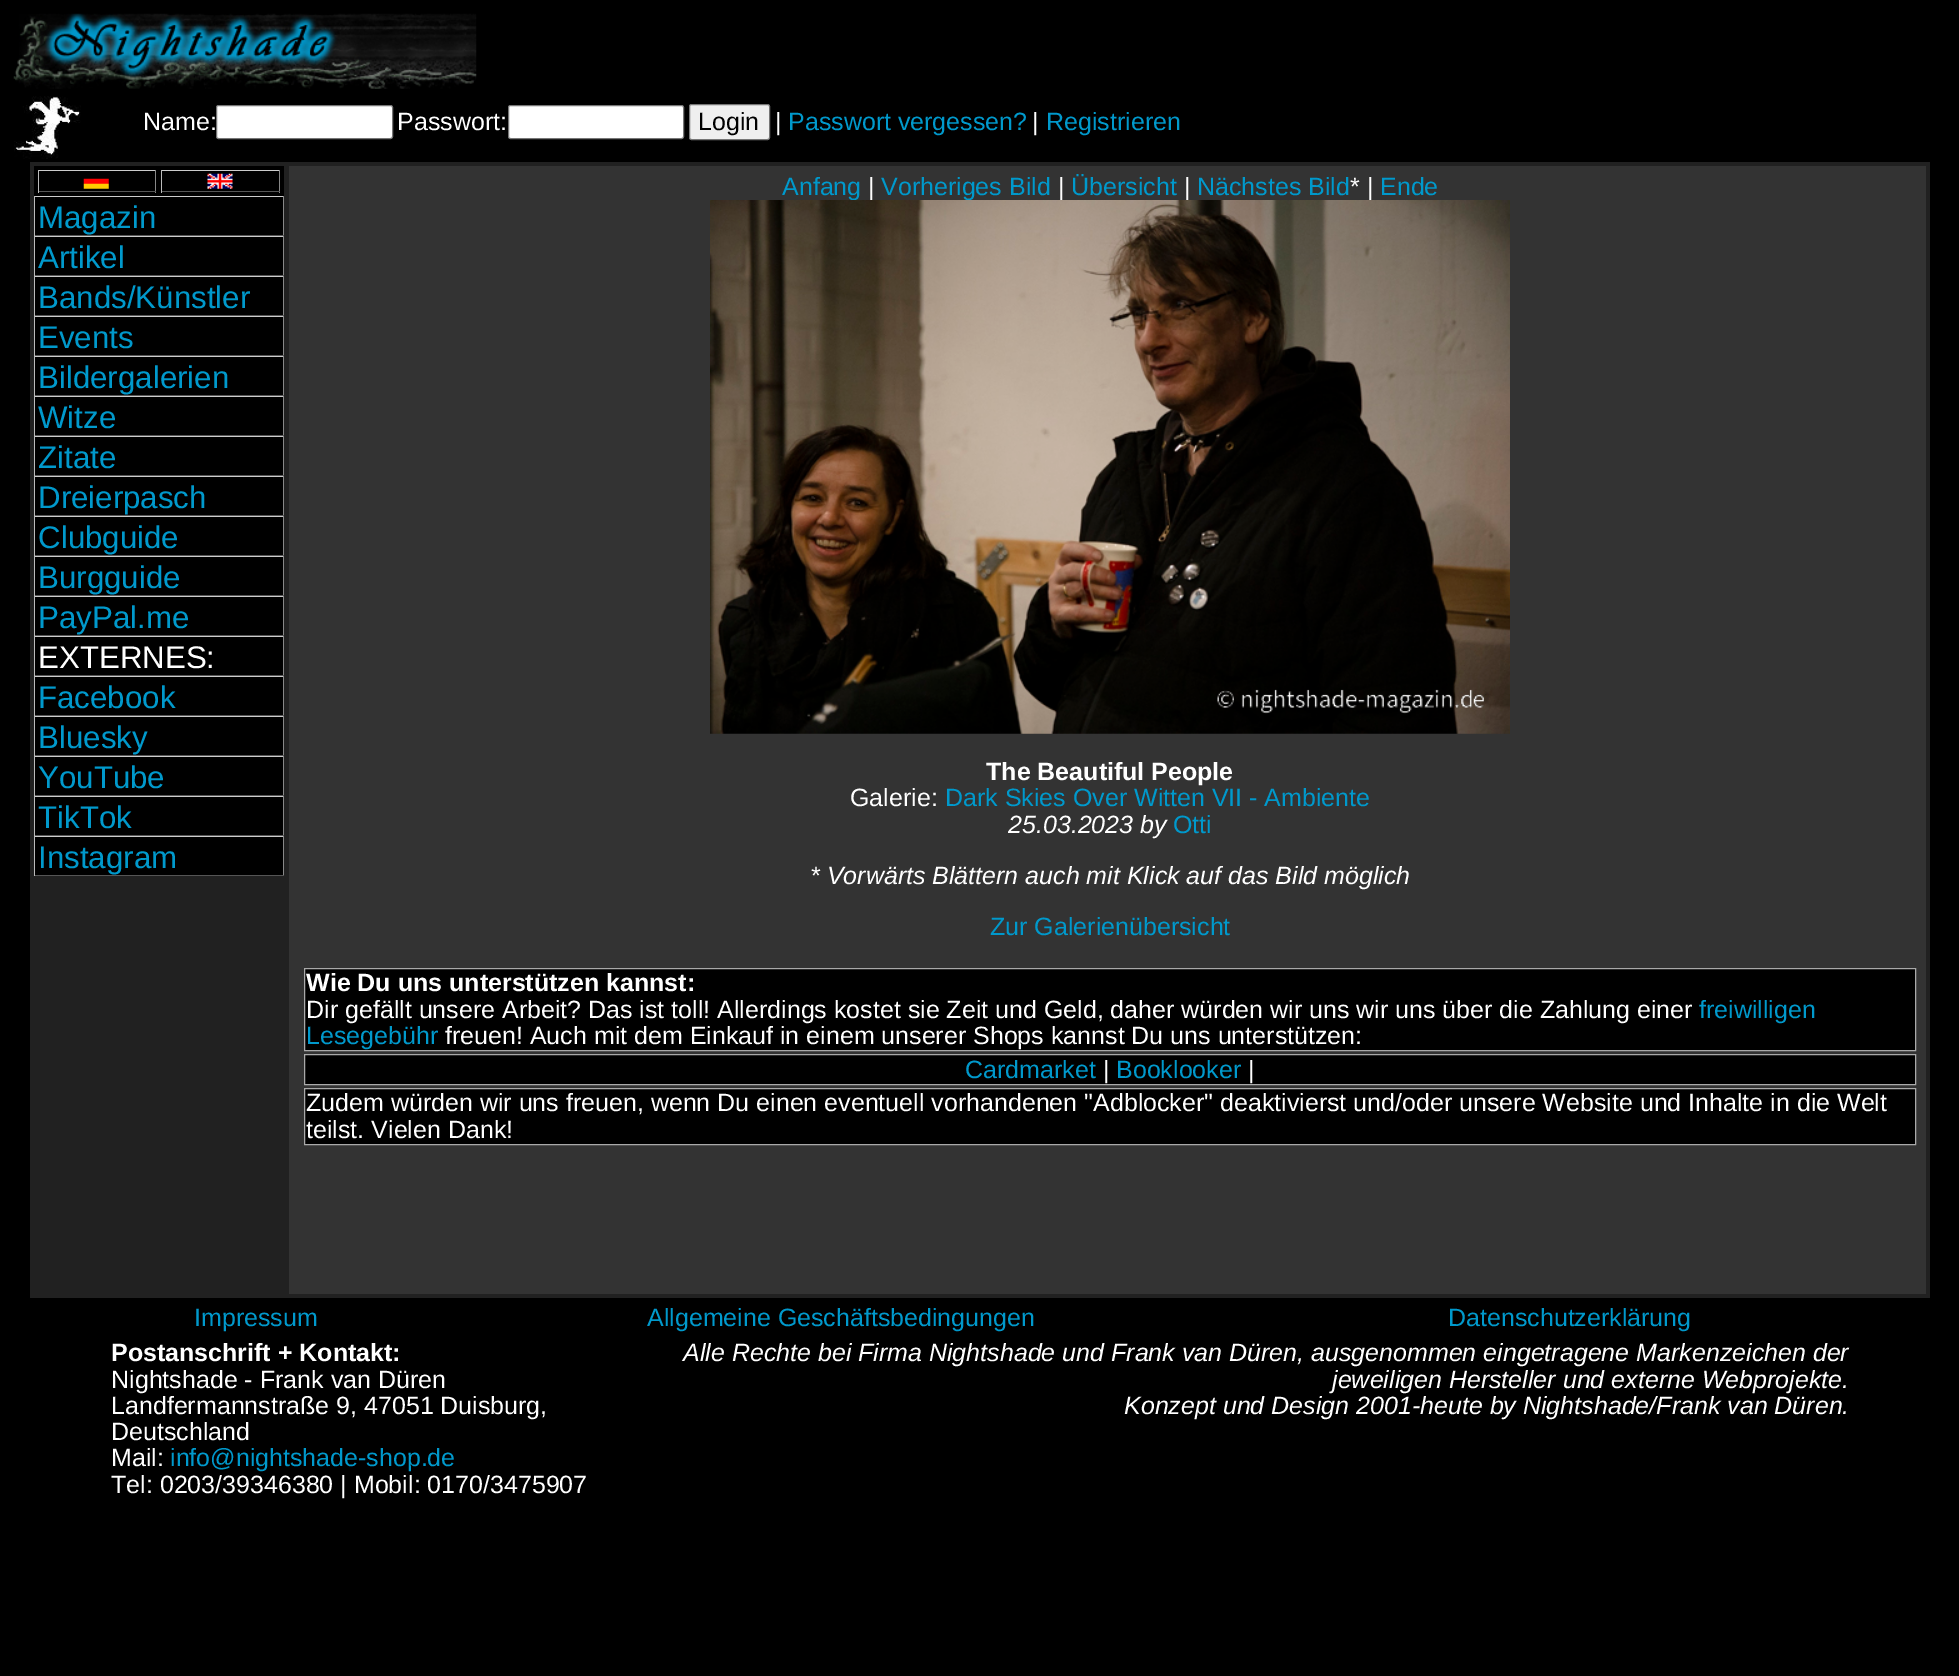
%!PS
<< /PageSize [1959 1676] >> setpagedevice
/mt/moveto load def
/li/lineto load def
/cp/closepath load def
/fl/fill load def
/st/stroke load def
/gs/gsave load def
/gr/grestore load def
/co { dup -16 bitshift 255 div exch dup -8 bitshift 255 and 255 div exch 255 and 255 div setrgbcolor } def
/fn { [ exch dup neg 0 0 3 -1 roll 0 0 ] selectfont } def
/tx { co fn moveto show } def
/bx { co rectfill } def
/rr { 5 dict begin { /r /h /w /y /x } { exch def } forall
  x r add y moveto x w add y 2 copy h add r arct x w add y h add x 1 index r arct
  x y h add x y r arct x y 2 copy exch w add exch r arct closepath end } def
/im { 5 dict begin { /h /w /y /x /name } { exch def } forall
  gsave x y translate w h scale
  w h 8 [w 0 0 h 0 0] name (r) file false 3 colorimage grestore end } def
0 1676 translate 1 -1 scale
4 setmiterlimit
0 0 1959 1676 16#000000 bx
(media/1.raw) 13 13 464 76 im
(media/2.raw) 14 96 67 63 im
16#FFFFFF co
216.5 105.5 176 33 2 rr gs fl gr
16#767676 co
st
16#FFFFFF co
508.5 105.5 175 33 2 rr gs fl gr
16#767676 co
st
16#EFEFEF co
689.5 104.5 80 35 2 rr gs fl gr
16#767676 co
st
30 162 1900 1136 16#212121 bx
34 166 250 30 16#000000 bx
38 170 118 1 16#CCCCCC bx
155 170 1 23 16#888888 bx
38 191 118 1 16#555555 bx
38 170 1 23 16#BBBBBB bx
(media/3.raw) 83 178 26 11 im
161 170 119 1 16#CCCCCC bx
279 170 1 23 16#888888 bx
161 191 119 1 16#555555 bx
161 170 1 23 16#BBBBBB bx
(media/4.raw) 207 173 26 16 im
35 197 248 38 16#000000 bx
34 196 250 1 16#CCCCCC bx
283 196 1 40 16#888888 bx
34 235 250 1 16#555555 bx
34 196 1 40 16#BBBBBB bx
35 237 248 38 16#000000 bx
34 236 250 1 16#CCCCCC bx
283 236 1 40 16#888888 bx
34 275 250 1 16#555555 bx
34 236 1 40 16#BBBBBB bx
35 277 248 38 16#000000 bx
34 276 250 1 16#CCCCCC bx
283 276 1 40 16#888888 bx
34 315 250 1 16#555555 bx
34 276 1 40 16#BBBBBB bx
35 317 248 38 16#000000 bx
34 316 250 1 16#CCCCCC bx
283 316 1 40 16#888888 bx
34 355 250 1 16#555555 bx
34 316 1 40 16#BBBBBB bx
35 357 248 38 16#000000 bx
34 356 250 1 16#CCCCCC bx
283 356 1 40 16#888888 bx
34 395 250 1 16#555555 bx
34 356 1 40 16#BBBBBB bx
35 397 248 38 16#000000 bx
34 396 250 1 16#CCCCCC bx
283 396 1 40 16#888888 bx
34 435 250 1 16#555555 bx
34 396 1 40 16#BBBBBB bx
35 437 248 38 16#000000 bx
34 436 250 1 16#CCCCCC bx
283 436 1 40 16#888888 bx
34 475 250 1 16#555555 bx
34 436 1 40 16#BBBBBB bx
35 477 248 38 16#000000 bx
34 476 250 1 16#CCCCCC bx
283 476 1 40 16#888888 bx
34 515 250 1 16#555555 bx
34 476 1 40 16#BBBBBB bx
35 517 248 38 16#000000 bx
34 516 250 1 16#CCCCCC bx
283 516 1 40 16#888888 bx
34 555 250 1 16#555555 bx
34 516 1 40 16#BBBBBB bx
35 557 248 38 16#000000 bx
34 556 250 1 16#CCCCCC bx
283 556 1 40 16#888888 bx
34 595 250 1 16#555555 bx
34 556 1 40 16#BBBBBB bx
35 597 248 38 16#000000 bx
34 596 250 1 16#CCCCCC bx
283 596 1 40 16#888888 bx
34 635 250 1 16#555555 bx
34 596 1 40 16#BBBBBB bx
35 637 248 38 16#000000 bx
34 636 250 1 16#CCCCCC bx
283 636 1 40 16#888888 bx
34 675 250 1 16#555555 bx
34 636 1 40 16#BBBBBB bx
35 677 248 38 16#000000 bx
34 676 250 1 16#CCCCCC bx
283 676 1 40 16#888888 bx
34 715 250 1 16#555555 bx
34 676 1 40 16#BBBBBB bx
35 717 248 38 16#000000 bx
34 716 250 1 16#CCCCCC bx
283 716 1 40 16#888888 bx
34 755 250 1 16#555555 bx
34 716 1 40 16#BBBBBB bx
35 757 248 38 16#000000 bx
34 756 250 1 16#CCCCCC bx
283 756 1 40 16#888888 bx
34 795 250 1 16#555555 bx
34 756 1 40 16#BBBBBB bx
35 797 248 38 16#000000 bx
34 796 250 1 16#CCCCCC bx
283 796 1 40 16#888888 bx
34 835 250 1 16#555555 bx
34 796 1 40 16#BBBBBB bx
35 837 248 38 16#000000 bx
34 836 250 1 16#CCCCCC bx
283 836 1 40 16#888888 bx
34 875 250 1 16#555555 bx
34 836 1 40 16#BBBBBB bx
289 166 1637 1128 16#333333 bx
16#000000 co
304.5 968.5 mt 1915.5 968.5 li 1915.5 1050.5 li 304.5 1050.5 li cp gs fl gr
16#A9A9A9 co
st
16#000000 co
304.5 1054.5 mt 1915.5 1054.5 li 1915.5 1084.5 li 304.5 1084.5 li cp gs fl gr
16#A9A9A9 co
st
16#000000 co
304.5 1088.5 mt 1915.5 1088.5 li 1915.5 1144.5 li 304.5 1144.5 li cp gs fl gr
16#A9A9A9 co
st
(Name:) 143 130 /LiberationSans-Regular 25 16#FFFFFF tx
(Passwort:) 397 130 /LiberationSans-Regular 25 16#FFFFFF tx
(Login) 698 130 /LiberationSans-Regular 25 16#000000 tx
(|) 775 130 /LiberationSans-Regular 25 16#FFFFFF tx
(Passwort vergessen?) 788 130 /LiberationSans-Regular 25 16#0099CC tx
(|) 1032 130 /LiberationSans-Regular 25 16#FFFFFF tx
(Registrieren) 1046 130 /LiberationSans-Regular 25 16#0099CC tx
(Magazin) 38 228 /LiberationSans-Regular 31.25 16#0099CC tx
(Artikel) 38 268 /LiberationSans-Regular 31.25 16#0099CC tx
(Bands/Künstler) 38 308 /LiberationSans-Regular 31.25 16#0099CC tx
(Events) 38 348 /LiberationSans-Regular 31.25 16#0099CC tx
(Bildergalerien) 38 388 /LiberationSans-Regular 31.25 16#0099CC tx
(Witze) 38 428 /LiberationSans-Regular 31.25 16#0099CC tx
(Zitate) 38 468 /LiberationSans-Regular 31.25 16#0099CC tx
(Dreierpasch) 38 508 /LiberationSans-Regular 31.25 16#0099CC tx
(Clubguide) 38 548 /LiberationSans-Regular 31.25 16#0099CC tx
(Burgguide) 38 588 /LiberationSans-Regular 31.25 16#0099CC tx
(PayPal.me) 38 628 /LiberationSans-Regular 31.25 16#0099CC tx
(EXTERNES:) 38 668 /LiberationSans-Regular 31.25 16#FFFFFF tx
(Facebook) 38 708 /LiberationSans-Regular 31.25 16#0099CC tx
(Bluesky) 38 748 /LiberationSans-Regular 31.25 16#0099CC tx
(YouTube) 38 788 /LiberationSans-Regular 31.25 16#0099CC tx
(TikTok) 38 828 /LiberationSans-Regular 31.25 16#0099CC tx
(Instagram) 38 868 /LiberationSans-Regular 31.25 16#0099CC tx
(Anfang) 782 195 /LiberationSans-Regular 25 16#0099CC tx
(|) 868 195 /LiberationSans-Regular 25 16#FFFFFF tx
(Vorheriges Bild) 881 195 /LiberationSans-Regular 25 16#0099CC tx
(|) 1058 195 /LiberationSans-Regular 25 16#FFFFFF tx
(Übersicht) 1071 195 /LiberationSans-Regular 25 16#0099CC tx
(|) 1184 195 /LiberationSans-Regular 25 16#FFFFFF tx
(Nächstes Bild) 1197 195 /LiberationSans-Regular 25 16#0099CC tx
(* |) 1350 195 /LiberationSans-Regular 25 16#FFFFFF tx
(Ende) 1380 195 /LiberationSans-Regular 25 16#0099CC tx
(media/5.raw) 710 200 800 534 im
(The Beautiful People) 986 780 /LiberationSans-Bold 25 16#FFFFFF tx
(Galerie:) 850 806 /LiberationSans-Regular 25 16#FFFFFF tx
(Dark Skies Over Witten VII - Ambiente) 945 806 /LiberationSans-Regular 25 16#0099CC tx
(25.03.2023 by) 1008 833 /LiberationSans-Italic 25 16#FFFFFF tx
(Otti) 1173 833 /LiberationSans-Regular 25 16#0099CC tx
(* Vorwärts Blättern auch mit Klick auf das Bild möglich) 810 884 /LiberationSans-Italic 25 16#FFFFFF tx
(Zur Galerienübersicht) 990 935 /LiberationSans-Regular 25 16#0099CC tx
(Wie Du uns unterstützen kannst:) 306 991 /LiberationSans-Bold 25 16#FFFFFF tx
(Dir gefällt unsere Arbeit? Das ist toll! Allerdings kostet sie Zeit und Geld, daher würden wir uns wir uns über die Zahlung einer) 306 1018 /LiberationSans-Regular 25 16#FFFFFF tx
(freiwilligen) 1699 1018 /LiberationSans-Regular 25 16#0099CC tx
(Lesegebühr) 306 1044 /LiberationSans-Regular 25 16#0099CC tx
(freuen! Auch mit dem Einkauf in einem unserer Shops kannst Du uns unterstützen:) 445 1044 /LiberationSans-Regular 25 16#FFFFFF tx
(Cardmarket) 965 1078 /LiberationSans-Regular 25 16#0099CC tx
(|) 1103 1078 /LiberationSans-Regular 25 16#FFFFFF tx
(Booklooker) 1116 1078 /LiberationSans-Regular 25 16#0099CC tx
(|) 1248 1078 /LiberationSans-Regular 25 16#FFFFFF tx
(Zudem würden wir uns freuen, wenn Du einen eventuell vorhandenen "Adblocker" deaktivierst und/oder unsere Website und Inhalte in die Welt) 306 1111 /LiberationSans-Regular 25 16#FFFFFF tx
(teilst. Vielen Dank!) 306 1138 /LiberationSans-Regular 25 16#FFFFFF tx
(Impressum) 194 1326 /LiberationSans-Regular 25 16#0099CC tx
(Allgemeine Geschäftsbedingungen) 647 1326 /LiberationSans-Regular 25 16#0099CC tx
(Datenschutzerklärung) 1448 1326 /LiberationSans-Regular 25 16#0099CC tx
(Postanschrift + Kontakt:) 111 1361 /LiberationSans-Bold 25 16#FFFFFF tx
(Nightshade - Frank van Düren) 111 1388 /LiberationSans-Regular 25 16#FFFFFF tx
(Landfermannstraße 9, 47051 Duisburg,) 111 1414 /LiberationSans-Regular 25 16#FFFFFF tx
(Deutschland) 111 1440 /LiberationSans-Regular 25 16#FFFFFF tx
(Mail:) 111 1466 /LiberationSans-Regular 25 16#FFFFFF tx
(info@nightshade-shop.de) 170 1466 /LiberationSans-Regular 25 16#0099CC tx
(Tel: 0203/39346380 | Mobil: 0170/3475907) 111 1493 /LiberationSans-Regular 25 16#FFFFFF tx
(Alle Rechte bei Firma Nightshade und Frank van Düren, ausgenommen eingetragene Markenzeichen der) 683 1361 /LiberationSans-Italic 25 16#FFFFFF tx
(jeweiligen Hersteller und externe Webprojekte.) 1332 1388 /LiberationSans-Italic 25 16#FFFFFF tx
(Konzept und Design 2001-heute by Nightshade/Frank van Düren.) 1124 1414 /LiberationSans-Italic 25 16#FFFFFF tx
showpage
